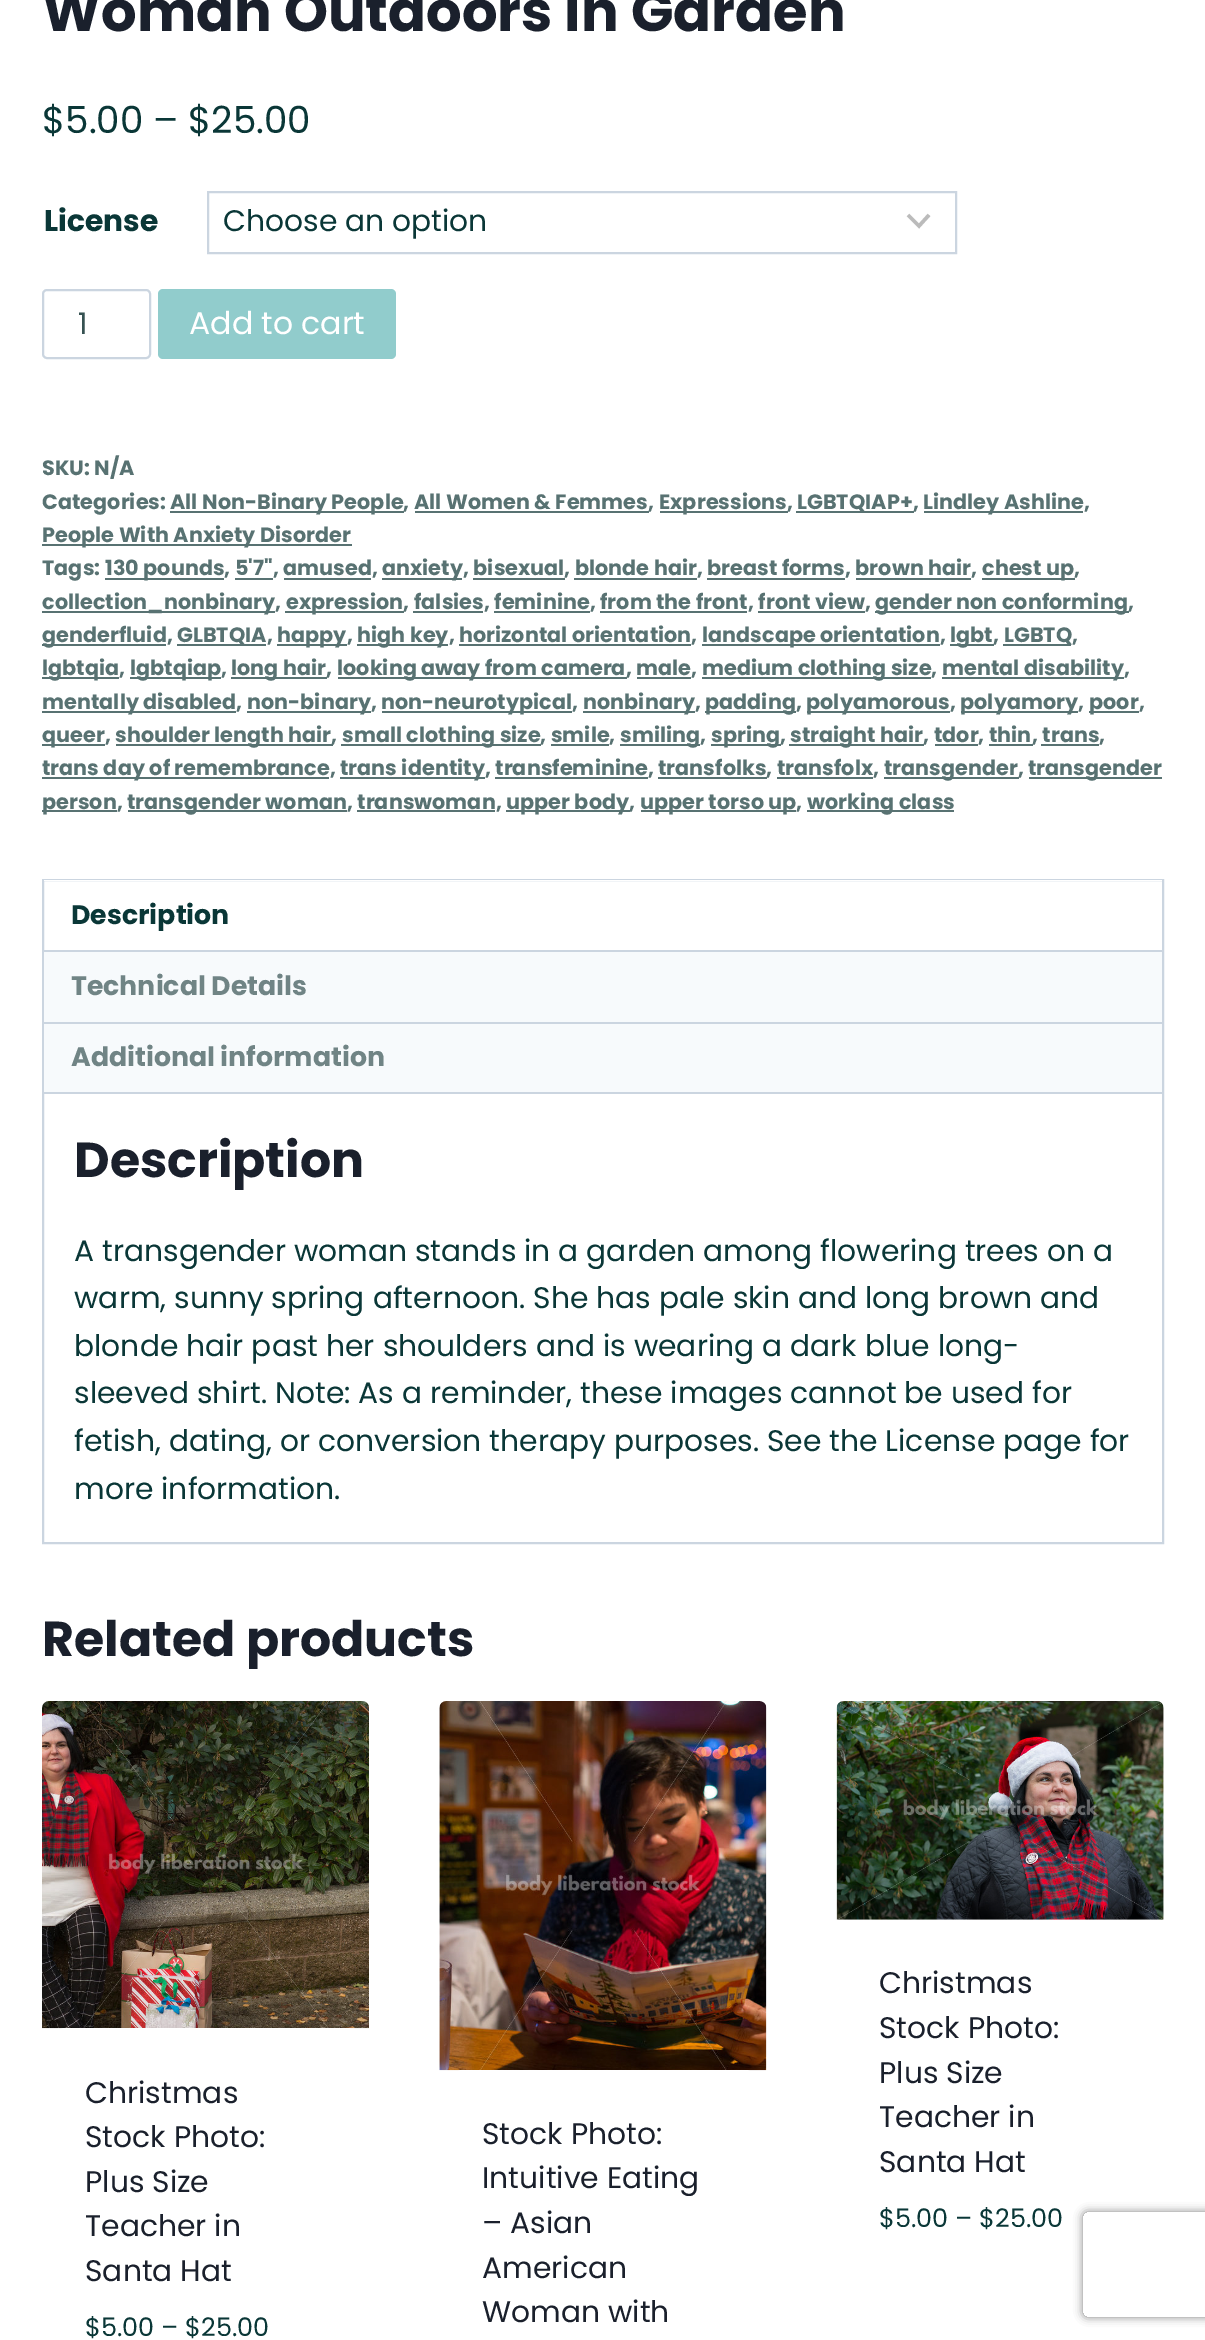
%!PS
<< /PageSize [1205 2340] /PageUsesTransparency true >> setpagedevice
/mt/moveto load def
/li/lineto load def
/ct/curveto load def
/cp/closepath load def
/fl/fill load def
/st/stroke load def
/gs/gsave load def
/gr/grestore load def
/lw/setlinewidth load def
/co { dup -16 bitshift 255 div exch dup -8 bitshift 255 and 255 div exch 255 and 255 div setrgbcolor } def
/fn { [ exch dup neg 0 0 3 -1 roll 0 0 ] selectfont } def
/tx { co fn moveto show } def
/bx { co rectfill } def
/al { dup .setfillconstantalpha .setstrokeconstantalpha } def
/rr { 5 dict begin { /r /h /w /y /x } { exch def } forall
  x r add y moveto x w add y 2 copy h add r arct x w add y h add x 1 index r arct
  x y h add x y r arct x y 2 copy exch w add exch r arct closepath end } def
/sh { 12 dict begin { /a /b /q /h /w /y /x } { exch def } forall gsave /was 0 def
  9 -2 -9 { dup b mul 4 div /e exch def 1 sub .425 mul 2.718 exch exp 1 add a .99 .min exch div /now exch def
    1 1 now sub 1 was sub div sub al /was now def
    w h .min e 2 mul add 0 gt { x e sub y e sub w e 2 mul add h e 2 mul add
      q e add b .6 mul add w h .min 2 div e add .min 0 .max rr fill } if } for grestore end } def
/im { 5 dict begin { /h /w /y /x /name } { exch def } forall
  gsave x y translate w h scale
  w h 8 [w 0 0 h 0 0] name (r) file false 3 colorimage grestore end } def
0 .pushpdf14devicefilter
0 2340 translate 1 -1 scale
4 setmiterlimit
0 0 1205 2340 16#FFFFFF bx
16#BBBBBB co
3.5 lw
908 215 mt 919 226 li 929 215 li st
16#CBD5E0 co
2 lw
208 192 748 61 rectstroke
43 290 107 68 4 rr st
16#91CCCC co
158 289 238 70 5 rr fl
170 511 234 2 16#587272 bx
660 511 128 2 16#587272 bx
796 511 118 2 16#587272 bx
924 511 159 2 16#587272 bx
415 511 234 2 16#587272 bx
42 544 310 2 16#587272 bx
105 578 119 2 16#587272 bx
382 578 80 2 16#587272 bx
982 578 93 2 16#587272 bx
235 578 38 2 16#587272 bx
284 578 87 2 16#587272 bx
473 578 92 2 16#587272 bx
574 578 123 2 16#587272 bx
707 578 138 2 16#587272 bx
856 578 115 2 16#587272 bx
42 611 233 2 16#587272 bx
285 611 119 2 16#587272 bx
875 611 254 2 16#587272 bx
413 611 70 2 16#587272 bx
494 611 96 2 16#587272 bx
600 611 147 2 16#587272 bx
758 611 107 2 16#587272 bx
42 644 124 2 16#587272 bx
177 644 89 2 16#587272 bx
277 644 70 2 16#587272 bx
357 644 91 2 16#587272 bx
702 644 238 2 16#587272 bx
950 644 44 2 16#587272 bx
1003 644 68 2 16#587272 bx
459 644 232 2 16#587272 bx
42 677 77 2 16#587272 bx
130 677 91 2 16#587272 bx
231 677 96 2 16#587272 bx
338 677 289 2 16#587272 bx
702 677 229 2 16#587272 bx
942 677 182 2 16#587272 bx
637 677 54 2 16#587272 bx
42 711 194 2 16#587272 bx
247 711 124 2 16#587272 bx
382 711 190 2 16#587272 bx
583 711 112 2 16#587272 bx
705 711 91 2 16#587272 bx
807 711 143 2 16#587272 bx
961 711 117 2 16#587272 bx
1089 711 50 2 16#587272 bx
42 744 63 2 16#587272 bx
116 744 217 2 16#587272 bx
341 744 200 2 16#587272 bx
620 744 80 2 16#587272 bx
711 744 70 2 16#587272 bx
789 744 135 2 16#587272 bx
551 744 58 2 16#587272 bx
935 744 43 2 16#587272 bx
989 744 44 2 16#587272 bx
1041 744 58 2 16#587272 bx
42 777 287 2 16#587272 bx
340 777 145 2 16#587272 bx
884 777 135 2 16#587272 bx
1029 777 133 2 16#587272 bx
495 777 153 2 16#587272 bx
658 777 109 2 16#587272 bx
777 777 96 2 16#587272 bx
42 810 75 2 16#587272 bx
128 810 219 2 16#587272 bx
506 810 124 2 16#587272 bx
641 810 155 2 16#587272 bx
807 810 147 2 16#587272 bx
357 810 138 2 16#587272 bx
16#CBD5E0 co
43 880 1120 663 rectstroke
44 880 1118 1 16#FFFFFF bx
44 950 1118 2 16#CBD5E0 bx
44 952 1118 70 16#F7FAFC bx
44 1022 1118 2 16#CBD5E0 bx
44 1024 1118 68 16#F7FAFC bx
44 1092 1118 2 16#CBD5E0 bx
(media/1.raw) 42 1701 327 328 im
16#FFFFFF co
58 2028 297 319 7 rr fl
(media/2.raw) 439 1701 328 370 im
455 2070 298 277 7 rr fl
(media/3.raw) 836 1701 328 219 im
gs
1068 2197 mt 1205 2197 li 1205 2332 li 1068 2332 li cp 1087 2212 mt 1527 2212 li 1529 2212 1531 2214 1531 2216 ct 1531 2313 li 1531 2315 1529 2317 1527 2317 ct 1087 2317 li 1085 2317 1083 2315 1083 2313 ct 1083 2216 li 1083 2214 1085 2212 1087 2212 ct cp eoclip newpath
16#808080 co
1083 2212 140 105 4 4.5 1 sh
gr
(Woman Outdoors in Garden) 42 31 /Poppins-Bold 56 16#1A202C tx
($5.00 – $25.00) 42 133 /Poppins-Regular 37.25 16#0A3737 tx
(License) 44 231 /Poppins-Bold 29.75 16#0A3737 tx
(Choose an option) 223 231 /Poppins-Regular 29.75 16#0A3737 tx
(1) 78 334 /Poppins-Regular 29.75 16#365252 tx
(Add to cart) 189 334 /Poppins-Regular 31.5 16#FFFFFF tx
(SKU: N/A) 42 475 /Poppins-Bold 20.8 16#587272 tx
(Categories:) 42 509 /Poppins-Bold 20.8 16#587272 tx
(All Non-Binary People, All Women & Femmes,) 170 509 /Poppins-Bold 20.8 16#587272 tx
(Expressions,) 659 509 /Poppins-Bold 20.8 16#587272 tx
(LGBTQIAP+,) 797 509 /Poppins-Bold 20.8 16#587272 tx
(Lindley Ashline,) 923 509 /Poppins-Bold 20.8 16#587272 tx
(People With Anxiety Disorder) 42 542 /Poppins-Bold 20.8 16#587272 tx
(Tags:) 42 575 /Poppins-Bold 20.8 16#587272 tx
(130 pounds, 5'7", amused,) 105 575 /Poppins-Bold 20.8 16#587272 tx
(anxiety, bisexual, blonde hair, breast forms, brown hair,) 382 575 /Poppins-Bold 20.8 16#587272 tx
(chest up,) 982 575 /Poppins-Bold 20.8 16#587272 tx
(collection_nonbinary,) 42 609 /Poppins-Bold 20.8 16#587272 tx
(expression, falsies, feminine, from the front, front view,) 286 609 /Poppins-Bold 20.8 16#587272 tx
(gender non conforming,) 875 609 /Poppins-Bold 20.8 16#587272 tx
(genderfluid,) 42 642 /Poppins-Bold 20.8 16#587272 tx
(GLBTQIA,) 177 642 /Poppins-Bold 20.8 16#587272 tx
(happy,) 277 642 /Poppins-Bold 20.8 16#587272 tx
(high key, horizontal orientation,) 357 642 /Poppins-Bold 20.8 16#587272 tx
(landscape orientation,) 702 642 /Poppins-Bold 20.8 16#587272 tx
(lgbt,) 950 642 /Poppins-Bold 20.8 16#587272 tx
(LGBTQ,) 1004 642 /Poppins-Bold 20.8 16#587272 tx
(lgbtqia,) 42 675 /Poppins-Bold 20.8 16#587272 tx
(lgbtqiap,) 130 675 /Poppins-Bold 20.8 16#587272 tx
(long hair,) 231 675 /Poppins-Bold 20.8 16#587272 tx
(looking away from camera, male,) 337 675 /Poppins-Bold 20.8 16#587272 tx
(medium clothing size,) 702 675 /Poppins-Bold 20.8 16#587272 tx
(mental disability,) 942 675 /Poppins-Bold 20.8 16#587272 tx
(mentally disabled,) 42 709 /Poppins-Bold 20.8 16#587272 tx
(non-binary,) 247 709 /Poppins-Bold 20.8 16#587272 tx
(non-neurotypical,) 381 709 /Poppins-Bold 20.8 16#587272 tx
(nonbinary,) 583 709 /Poppins-Bold 20.8 16#587272 tx
(padding,) 705 709 /Poppins-Bold 20.8 16#587272 tx
(polyamorous,) 806 709 /Poppins-Bold 20.8 16#587272 tx
(polyamory,) 960 709 /Poppins-Bold 20.8 16#587272 tx
(poor,) 1089 709 /Poppins-Bold 20.8 16#587272 tx
(queer,) 42 742 /Poppins-Bold 20.8 16#587272 tx
(shoulder length hair,) 115 742 /Poppins-Bold 20.8 16#587272 tx
(small clothing size, smile,) 342 742 /Poppins-Bold 20.8 16#587272 tx
(smiling,) 620 742 /Poppins-Bold 20.8 16#587272 tx
(spring,) 711 742 /Poppins-Bold 20.8 16#587272 tx
(straight hair, tdor, thin) 790 742 /Poppins-Bold 20.8 16#587272 tx
(, trans,) 1032 742 /Poppins-Bold 20.8 16#587272 tx
(trans day of remembrance,) 42 775 /Poppins-Bold 20.8 16#587272 tx
(trans identity, transfeminine, transfolks, transfolx,) 340 775 /Poppins-Bold 20.8 16#587272 tx
(transgender,) 884 775 /Poppins-Bold 20.8 16#587272 tx
(transgender) 1028 775 /Poppins-Bold 20.8 16#587272 tx
(person,) 42 809 /Poppins-Bold 20.8 16#587272 tx
(transgender woman, transwoman,) 127 809 /Poppins-Bold 20.8 16#587272 tx
(upper body,) 506 809 /Poppins-Bold 20.8 16#587272 tx
(upper torso up,) 640 809 /Poppins-Bold 20.8 16#587272 tx
(working class) 807 809 /Poppins-Bold 20.8 16#587272 tx
(Description) 71 924 /Poppins-Bold 26.75 16#0A3737 tx
(Technical Details) 71 995 /Poppins-Bold 26.75 16#708485 tx
(Additional information) 71 1066 /Poppins-Bold 26.75 16#708485 tx
(Description) 74 1177 /Poppins-Bold 49 16#1A202C tx
(A transgender woman stands in a garden among flowering trees on a) 74 1261 /Poppins-Regular 29.75 16#0A3737 tx
(warm, sunny spring afternoon. She has pale skin and long brown and) 74 1308 /Poppins-Regular 29.75 16#0A3737 tx
(blonde hair past her shoulders and is wearing a dark blue long-) 74 1356 /Poppins-Regular 29.75 16#0A3737 tx
(sleeved shirt. Note: As a reminder, these images cannot be used for) 74 1403 /Poppins-Regular 29.75 16#0A3737 tx
(fetish, dating, or conversion therapy purposes. See the License page for) 74 1451 /Poppins-Regular 29.75 16#0A3737 tx
(more information.) 74 1499 /Poppins-Regular 29.75 16#0A3737 tx
(Related products) 42 1656 /Poppins-Bold 49 16#1A202C tx
(Christmas) 85 2103 /Poppins-Regular 29.75 16#1A202C tx
(Stock Photo:) 85 2147 /Poppins-Regular 29.75 16#1A202C tx
(Plus Size) 85 2192 /Poppins-Regular 29.75 16#1A202C tx
(Teacher in) 85 2236 /Poppins-Regular 29.75 16#1A202C tx
(Santa Hat) 85 2281 /Poppins-Regular 29.75 16#1A202C tx
($5.00 – $25.00) 85 2336 /Poppins-Regular 25.5 16#0A3737 tx
(Stock Photo:) 482 2144 /Poppins-Regular 29.75 16#1A202C tx
(Intuitive Eating) 482 2188 /Poppins-Regular 29.75 16#1A202C tx
(– Asian) 482 2233 /Poppins-Regular 29.75 16#1A202C tx
(American) 482 2278 /Poppins-Regular 29.75 16#1A202C tx
(Woman with) 482 2322 /Poppins-Regular 29.75 16#1A202C tx
(Christmas) 879 1993 /Poppins-Regular 29.75 16#1A202C tx
(Stock Photo:) 879 2038 /Poppins-Regular 29.75 16#1A202C tx
(Plus Size) 879 2083 /Poppins-Regular 29.75 16#1A202C tx
(Teacher in) 879 2127 /Poppins-Regular 29.75 16#1A202C tx
(Santa Hat) 879 2172 /Poppins-Regular 29.75 16#1A202C tx
($5.00 – $25.00) 879 2227 /Poppins-Regular 25.5 16#0A3737 tx
.poppdf14devicefilter showpage
